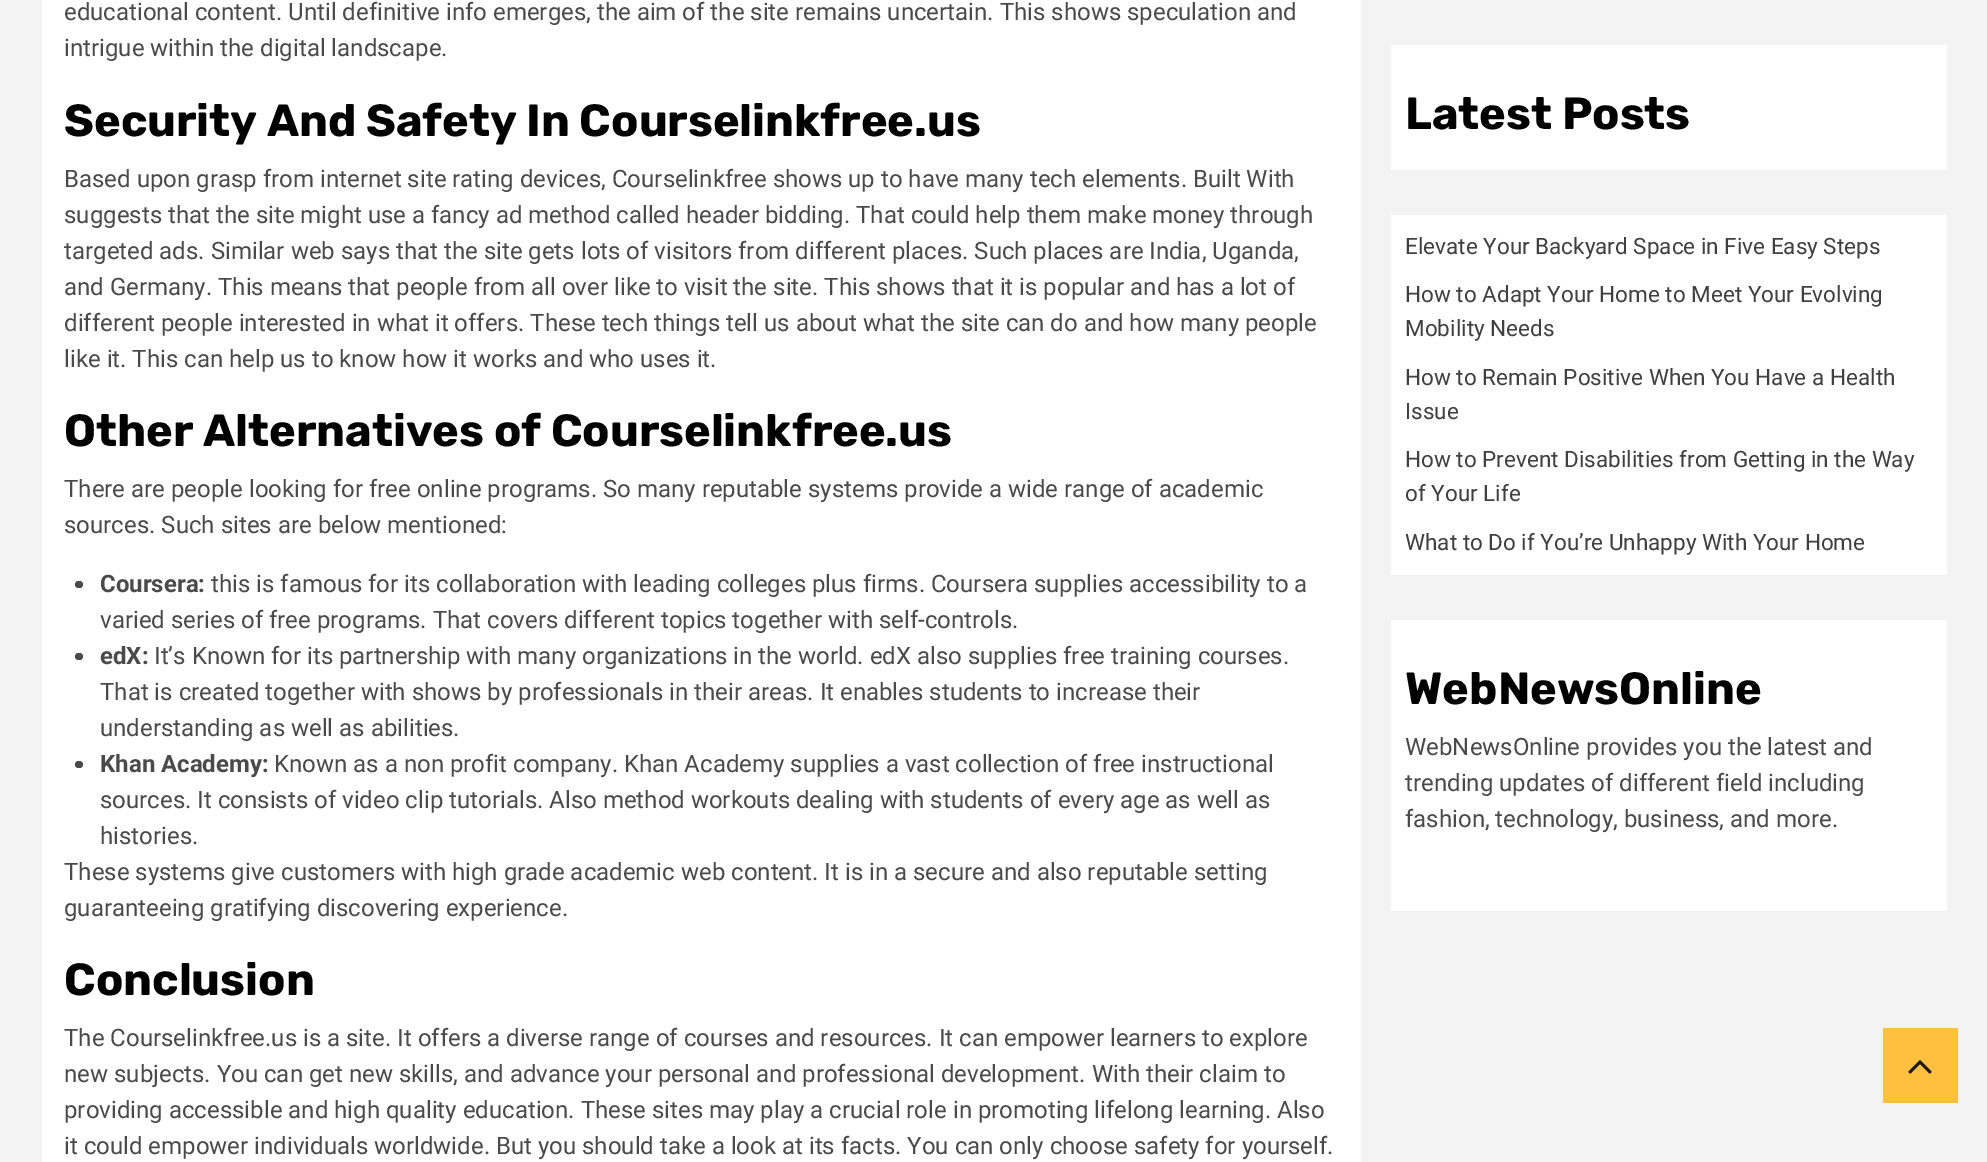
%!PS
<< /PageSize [1987 1162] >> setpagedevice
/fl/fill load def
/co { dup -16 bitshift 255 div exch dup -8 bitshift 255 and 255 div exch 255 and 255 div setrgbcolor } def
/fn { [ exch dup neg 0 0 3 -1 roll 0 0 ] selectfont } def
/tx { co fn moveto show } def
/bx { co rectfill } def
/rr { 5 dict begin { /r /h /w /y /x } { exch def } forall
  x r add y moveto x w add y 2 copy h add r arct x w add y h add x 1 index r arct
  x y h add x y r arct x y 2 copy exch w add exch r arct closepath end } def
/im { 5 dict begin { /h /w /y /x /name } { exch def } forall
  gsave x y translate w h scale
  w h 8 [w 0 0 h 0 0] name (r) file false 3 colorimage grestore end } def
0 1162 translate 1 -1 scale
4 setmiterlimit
0 0 1987 1162 16#F3F3F3 bx
42 0 1319 1162 16#FFFFFF bx
16#4A4A4A co
75 581 8 7 3.5 rr fl
75 653 8 7 3.5 rr fl
75 761 8 7 3.5 rr fl
1391 45 556 125 16#FFFFFF bx
1391 215 556 360 16#FFFFFF bx
1391 620 556 291 16#FFFFFF bx
1883 1028 75 75 16#FFBF3F bx
(media/1.raw) 1908 1060 24 14 im
(educational content. Until definitive info emerges, the aim of the site remains uncertain. This shows speculation and) 64 20 /Roboto-Regular 24 16#4A4A4A tx
(intrigue within the digital landscape.) 64 56 /Roboto-Regular 24 16#4A4A4A tx
(Security And Safety In Courselinkfree.us) 64 136 /Rubik-Bold 45 16#000000 tx
(Based upon grasp from internet site rating devices, Courselinkfree shows up to have many tech elements. Built With) 64 187 /Roboto-Regular 24 16#4A4A4A tx
(suggests that the site might use a fancy ad method called header bidding. That could help them make money through) 64 223 /Roboto-Regular 24 16#4A4A4A tx
(targeted ads. Similar web says that the site gets lots of visitors from different places. Such places are India, Uganda,) 64 259 /Roboto-Regular 24 16#4A4A4A tx
(and Germany. This means that people from all over like to visit the site. This shows that it is popular and has a lot of) 64 295 /Roboto-Regular 24 16#4A4A4A tx
(different people interested in what it offers. These tech things tell us about what the site can do and how many people) 64 331 /Roboto-Regular 24 16#4A4A4A tx
(like it. This can help us to know how it works and who uses it.) 64 367 /Roboto-Regular 24 16#4A4A4A tx
(Other Alternatives of Courselinkfree.us) 64 446 /Rubik-Bold 45 16#000000 tx
(There are people looking for free online programs. So many reputable systems provide a wide range of academic) 64 497 /Roboto-Regular 24 16#4A4A4A tx
(sources. Such sites are below mentioned:) 64 533 /Roboto-Regular 24 16#4A4A4A tx
(Coursera:) 100 592 /Roboto-Bold 24 16#4A4A4A tx
(this is famous for its collaboration with leading colleges plus firms. Coursera supplies accessibility to a) 211 592 /Roboto-Regular 24 16#4A4A4A tx
(varied series of free programs. That covers different topics together with self-controls.) 100 628 /Roboto-Regular 24 16#4A4A4A tx
(edX:) 100 664 /Roboto-Bold 24 16#4A4A4A tx
(It’s Known for its partnership with many organizations in the world. edX also supplies free training courses.) 154 664 /Roboto-Regular 24 16#4A4A4A tx
(That is created together with shows by professionals in their areas. It enables students to increase their) 100 700 /Roboto-Regular 24 16#4A4A4A tx
(understanding as well as abilities.) 100 736 /Roboto-Regular 24 16#4A4A4A tx
(Khan Academy:) 100 772 /Roboto-Bold 24 16#4A4A4A tx
(Known as a non profit company. Khan Academy supplies a vast collection of free instructional) 274 772 /Roboto-Regular 24 16#4A4A4A tx
(sources. It consists of video clip tutorials. Also method workouts dealing with students of every age as well as) 100 808 /Roboto-Regular 24 16#4A4A4A tx
(histories.) 100 844 /Roboto-Regular 24 16#4A4A4A tx
(These systems give customers with high grade academic web content. It is in a secure and also reputable setting) 64 880 /Roboto-Regular 24 16#4A4A4A tx
(guaranteeing gratifying discovering experience.) 64 916 /Roboto-Regular 24 16#4A4A4A tx
(Conclusion) 64 995 /Rubik-Bold 45 16#000000 tx
(The Courselinkfree.us is a site. It offers a diverse range of courses and resources. It can empower learners to explore) 64 1046 /Roboto-Regular 24 16#4A4A4A tx
(new subjects. You can get new skills, and advance your personal and professional development. With their claim to) 64 1082 /Roboto-Regular 24 16#4A4A4A tx
(providing accessible and high quality education. These sites may play a crucial role in promoting lifelong learning. Also) 64 1118 /Roboto-Regular 24 16#4A4A4A tx
(it could empower individuals worldwide. But you should take a look at its facts. You can only choose safety for yourself.) 64 1154 /Roboto-Regular 24 16#4A4A4A tx
(Latest Posts) 1405 129 /Rubik-Bold 45 16#000000 tx
(Elevate Your Backyard Space in Five Easy Steps) 1405 254 /Roboto-Regular 22.5 16#404040 tx
(How to Adapt Your Home to Meet Your Evolving) 1405 302 /Roboto-Regular 22.5 16#404040 tx
(Mobility Needs) 1405 336 /Roboto-Regular 22.5 16#404040 tx
(How to Remain Positive When You Have a Health) 1405 385 /Roboto-Regular 22.5 16#404040 tx
(Issue) 1405 419 /Roboto-Regular 22.5 16#404040 tx
(How to Prevent Disabilities from Getting in the Way) 1405 467 /Roboto-Regular 22.5 16#404040 tx
(of Your Life) 1405 501 /Roboto-Regular 22.5 16#404040 tx
(What to Do if You’re Unhappy With Your Home) 1405 550 /Roboto-Regular 22.5 16#404040 tx
(WebNewsOnline) 1405 704 /Rubik-Bold 45 16#000000 tx
(WebNewsOnline provides you the latest and) 1405 755 /Roboto-Regular 24 16#4A4A4A tx
(trending updates of different field including) 1405 791 /Roboto-Regular 24 16#4A4A4A tx
(fashion, technology, business, and more.) 1405 827 /Roboto-Regular 24 16#4A4A4A tx
showpage
